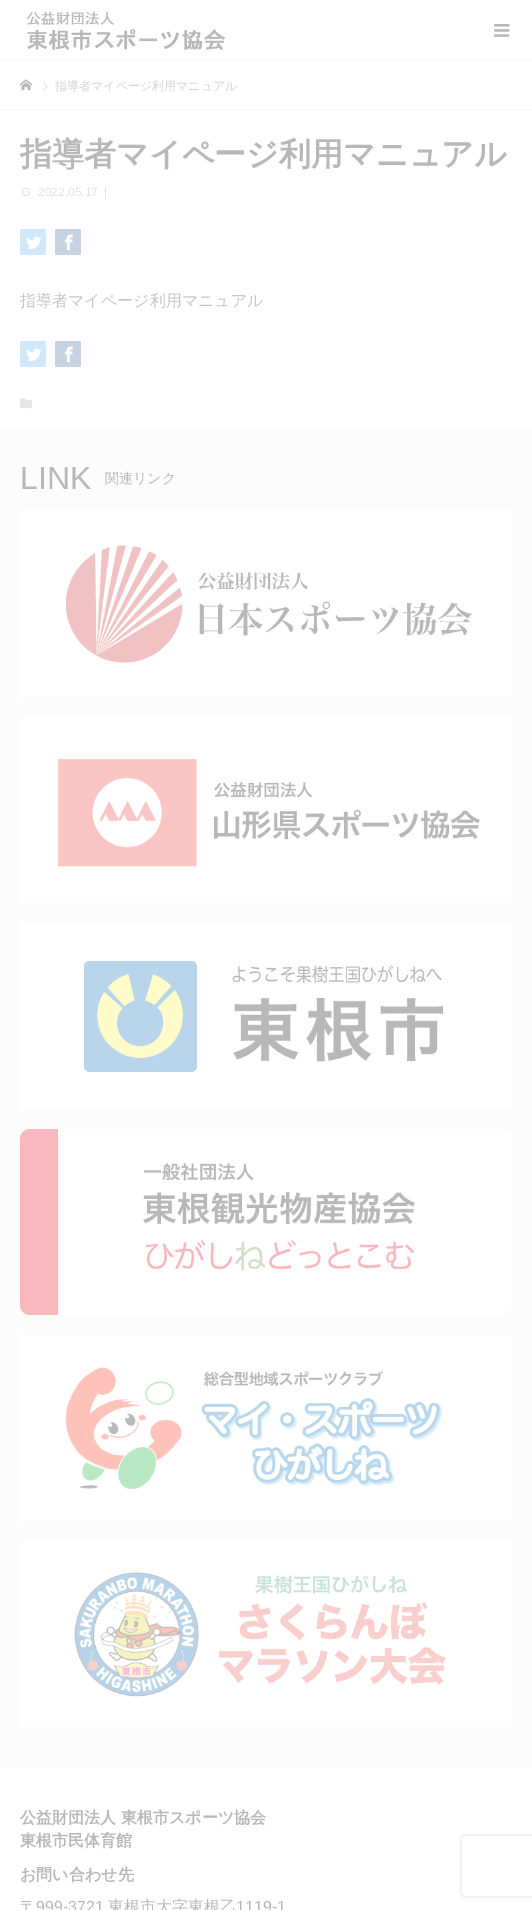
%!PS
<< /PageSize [532 1910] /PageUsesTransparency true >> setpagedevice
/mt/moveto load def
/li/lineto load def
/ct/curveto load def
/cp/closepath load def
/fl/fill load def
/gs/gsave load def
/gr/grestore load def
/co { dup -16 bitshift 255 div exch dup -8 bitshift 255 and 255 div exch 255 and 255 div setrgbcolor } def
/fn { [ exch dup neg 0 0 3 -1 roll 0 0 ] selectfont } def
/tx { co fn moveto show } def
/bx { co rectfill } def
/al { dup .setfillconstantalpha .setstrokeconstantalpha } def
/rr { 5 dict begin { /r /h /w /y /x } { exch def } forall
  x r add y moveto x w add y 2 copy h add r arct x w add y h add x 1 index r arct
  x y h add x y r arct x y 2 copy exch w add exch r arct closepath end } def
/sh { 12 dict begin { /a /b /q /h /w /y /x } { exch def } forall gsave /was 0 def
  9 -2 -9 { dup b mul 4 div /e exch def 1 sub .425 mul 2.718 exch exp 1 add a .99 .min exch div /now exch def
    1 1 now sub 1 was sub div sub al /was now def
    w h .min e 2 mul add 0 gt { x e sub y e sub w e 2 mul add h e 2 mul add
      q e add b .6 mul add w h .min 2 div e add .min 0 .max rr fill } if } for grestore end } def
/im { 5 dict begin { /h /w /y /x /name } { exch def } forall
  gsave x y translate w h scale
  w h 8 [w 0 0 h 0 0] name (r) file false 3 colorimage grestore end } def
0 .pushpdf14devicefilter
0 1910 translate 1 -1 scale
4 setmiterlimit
0 0 532 1910 16#FFFFFF bx
(media/1.raw) 26 11 200 39 im
(media/2.raw) 494 24 16 13 im
0 60 532 1 16#F5F5F5 bx
0 109 532 1 16#F5F5F5 bx
(media/3.raw) 20 79 12 12 im
(media/4.raw) 43 82 5 9 im
(media/5.raw) 21 187 10 10 im
16#CFE8FA co
20 229 26 26 2 rr fl
(media/6.raw) 26 236 16 14 im
16#C6D3E3 co
55 229 26 26 2 rr fl
(media/7.raw) 64 234 9 17 im
16#CFE8FA co
20 341 26 26 2 rr fl
(media/6.raw) 26 348 16 14 im
16#C6D3E3 co
55 341 26 26 2 rr fl
(media/7.raw) 64 346 9 17 im
(media/8.raw) 20 398 12 11 im
0 427 532 1340 16#FCFCFC bx
(media/9.raw) 20 510 492 187 im
(media/10.raw) 20 717 492 186 im
(media/11.raw) 20 923 492 186 im
(media/12.raw) 20 1129 492 186 im
(media/13.raw) 20 1335 492 186 im
(media/14.raw) 20 1541 492 186 im
gs
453 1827 mt 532 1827 li 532 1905 li 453 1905 li cp 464 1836 mt 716 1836 li 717 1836 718 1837 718 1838 ct 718 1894 li 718 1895 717 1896 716 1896 ct 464 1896 li 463 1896 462 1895 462 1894 ct 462 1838 li 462 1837 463 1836 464 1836 ct cp eoclip newpath
16#DBDBDB co
462 1836 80 60 2 2.5 1 sh
gr
(指導者マイページ利用マニュアル) 55 90 /WenQuanYiZenHei-Medium 12 16#D4D4D4 tx
(指導者マイページ利用マニュアル) 20 165 /WenQuanYiZenHei-Bold 32 16#B8B8B8 tx
(2022.05.17) 38 196 /LiberationSans-Regular 12 16#E2E2E2 tx
(|) 104 196 /LiberationSans-Regular 12 16#E2E2E2 tx
(指導者マイページ利用マニュアル) 20 306 /WenQuanYiZenHei-Medium 16 16#C6C6C6 tx
(LINK) 20 489 /LiberationSans-Regular 32 16#B8B8B8 tx
(関連リンク) 105 483 /WenQuanYiZenHei-Medium 14 16#B8B8B8 tx
(公益財団法人 東根市スポーツ協会) 20 1823 /WenQuanYiZenHei-Bold 16 16#B8B8B8 tx
(東根市民体育館) 20 1846 /WenQuanYiZenHei-Bold 16 16#B8B8B8 tx
(お問い合わせ先) 20 1880 /WenQuanYiZenHei-Bold 16 16#B8B8B8 tx
(〒) 20 1912 /WenQuanYiZenHei-Medium 16 16#B8B8B8 tx
(999-3721) 36 1912 /LiberationSans-Regular 16 16#B8B8B8 tx
(東根市大字東根乙) 108 1912 /WenQuanYiZenHei-Medium 16 16#B8B8B8 tx
(1119-1) 236 1912 /LiberationSans-Regular 16 16#B8B8B8 tx
.poppdf14devicefilter showpage
